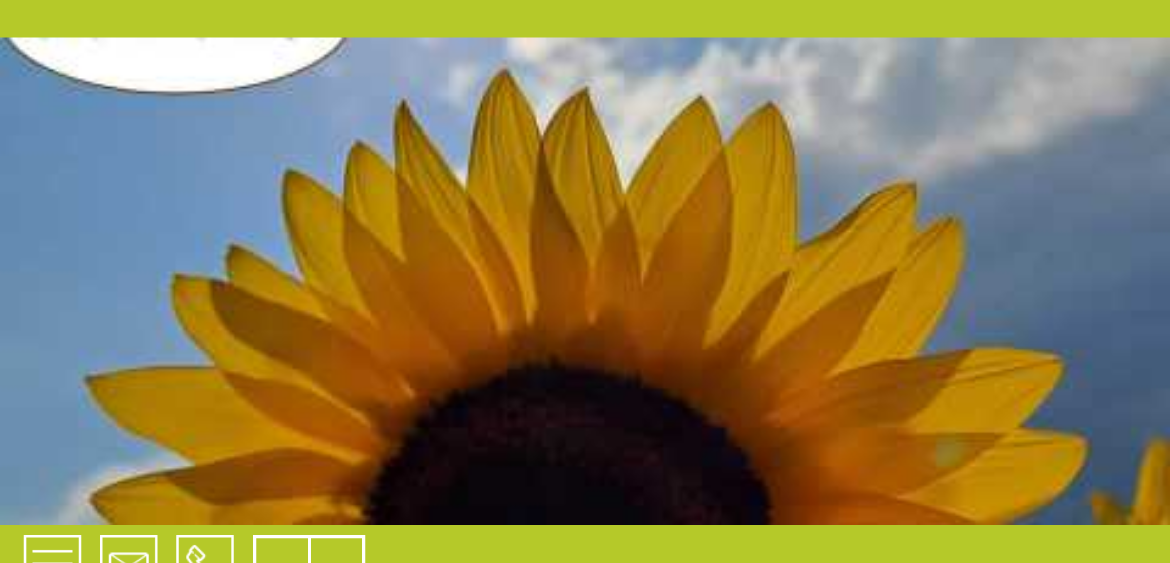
%!PS
<< /PageSize [1170 563] >> setpagedevice
/lw/setlinewidth load def
/co { dup -16 bitshift 255 div exch dup -8 bitshift 255 and 255 div exch 255 and 255 div setrgbcolor } def
/bx { co rectfill } def
/im { 5 dict begin { /h /w /y /x /name } { exch def } forall
  gsave x y translate w h scale
  w h 8 [w 0 0 h 0 0] name (r) file false 3 colorimage grestore end } def
0 563 translate 1 -1 scale
4 setmiterlimit
0 0 1170 563 16#B5C929 bx
(media/1.raw) 0 37 1170 488 im
(media/2.raw) 23 535 59 28 im
(media/3.raw) 100 535 58 28 im
(media/4.raw) 176 535 58 28 im
16#FFFFFF co
3 lw
254.5 536.5 109 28 rectstroke
308 538 3 25 16#FFFFFF bx
showpage
